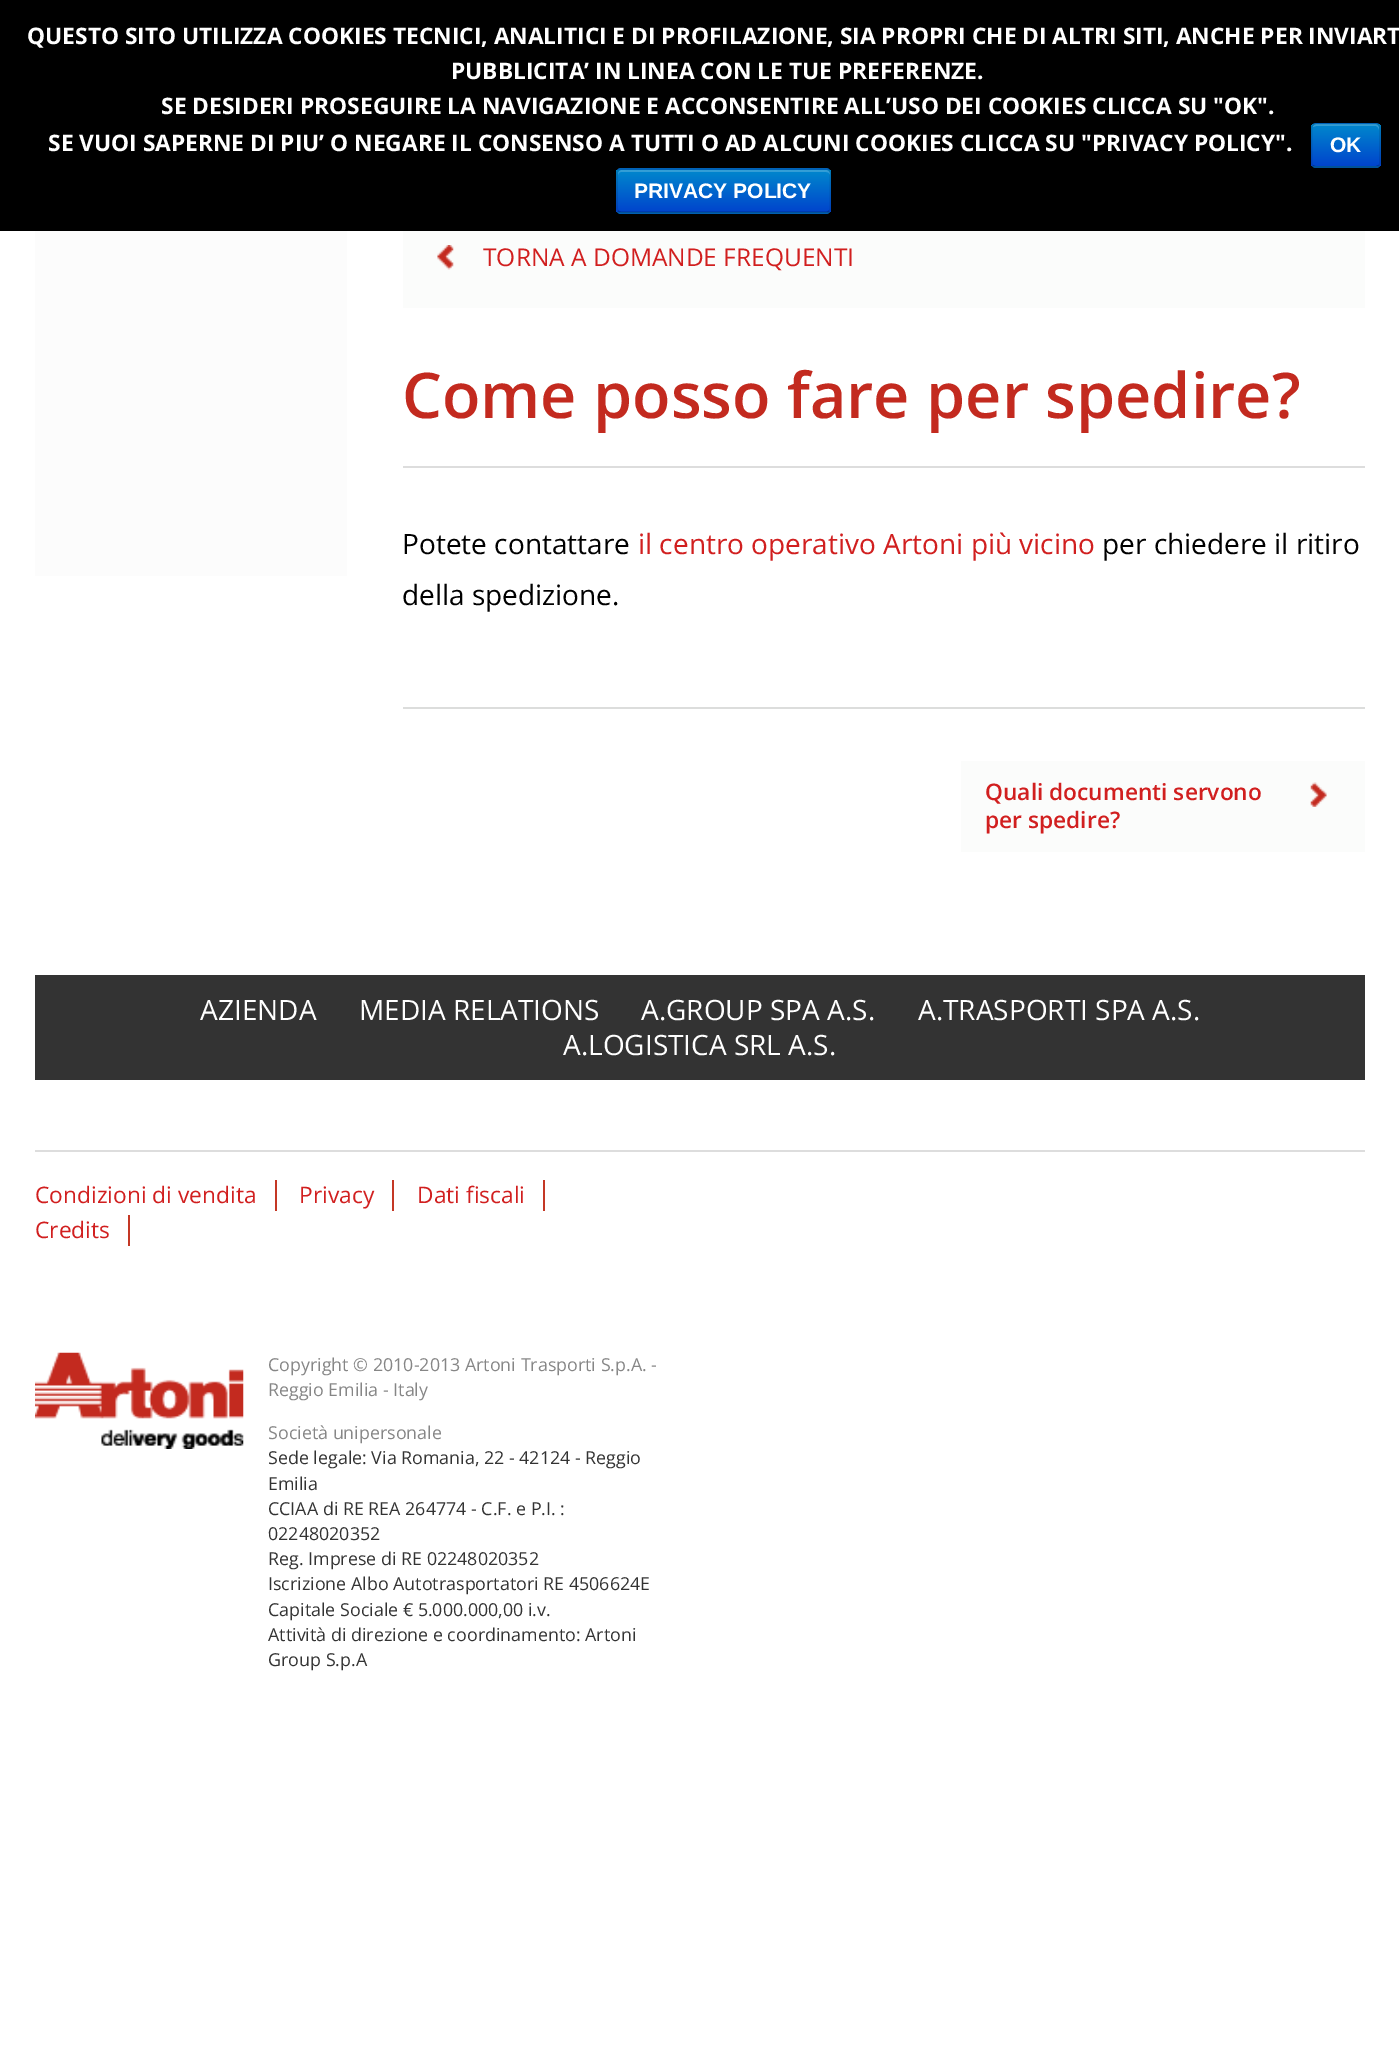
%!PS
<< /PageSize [1399 2055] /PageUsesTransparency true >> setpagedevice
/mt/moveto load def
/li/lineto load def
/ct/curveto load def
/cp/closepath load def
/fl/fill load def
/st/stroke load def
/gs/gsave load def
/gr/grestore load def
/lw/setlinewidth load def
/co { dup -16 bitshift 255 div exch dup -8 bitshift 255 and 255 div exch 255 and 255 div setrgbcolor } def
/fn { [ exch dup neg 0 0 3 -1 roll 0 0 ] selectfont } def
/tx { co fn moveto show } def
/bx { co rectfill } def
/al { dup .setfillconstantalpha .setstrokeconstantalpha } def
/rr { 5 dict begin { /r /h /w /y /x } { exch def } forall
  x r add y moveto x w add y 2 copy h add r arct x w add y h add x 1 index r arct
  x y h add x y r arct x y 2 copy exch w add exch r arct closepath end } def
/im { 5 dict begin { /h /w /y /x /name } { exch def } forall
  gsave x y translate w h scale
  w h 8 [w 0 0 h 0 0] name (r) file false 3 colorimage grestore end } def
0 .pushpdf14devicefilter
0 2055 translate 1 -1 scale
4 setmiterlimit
0 0 1399 2055 16#FFFFFF bx
0 0 1399 231 16#000000 bx
16#006DCC co
1311 123 70 45 5 rr fl
gs
1311 123 70 45 5 rr clip newpath
gs 1311 124 mt 1381 124 li 1381 166 li 1311 166 li cp clip newpath
<< /ShadingType 2 /ColorSpace /DeviceRGB /Coords [1346 124 1346 166] /Extend [true true] /Function << /FunctionType 2 /Domain [0 1] /C0 [0 .533 .8] /C1 [0 .267 .8] /N 1 >> >> shfill gr
gr
0.2 al
16#FFFFFF co
1316 126 mt 1376 126 li 1377 126 1379 128 1379 130 ct 1379 128 li 1379 126 1377 124 1375 124 ct 1317 124 li 1315 124 1313 126 1313 127 ct cp fl
0.25 al
16#000000 co
1.8 lw
1378.5 166 mt 1376 167 li 1315.5 167 li 1313 166 li st
0.1 al
1313 166 mt 1312 165 1311.5 164 1311.5 163 ct 1311.5 128 li 1311.5 126.5 1312 125.5 1313 124.5 ct 1313.5 124 1315 123.5 1316 123.5 ct 1375.5 123.5 li 1376.5 123.5 1378 124 1378.5 124.5 ct 1379.5 125.5 1380 126.5 1380 128 ct 1380 163 li 1380 164 1379.5 165 1378.5 166 ct st
1 al
16#006DCC co
616 168 215 46 5 rr fl
gs
616 168 215 46 5 rr clip newpath
gs 616 170 mt 831 170 li 831 212 li 616 212 li cp clip newpath
<< /ShadingType 2 /ColorSpace /DeviceRGB /Coords [724 170 724 212] /Extend [true true] /Function << /FunctionType 2 /Domain [0 1] /C0 [0 .533 .8] /C1 [0 .267 .8] /N 1 >> >> shfill gr
gr
0.2 al
16#FFFFFF co
621 172 mt 826 172 li 828 172 830 173 830 175 ct 830 174 li 830 172 828 170 826 170 ct 622 170 li 620 170 618 172 618 174 ct 618 175 li 618 173 619 172 621 172 ct cp fl
0.25 al
16#000000 co
829 211.5 mt 826.5 212.5 li 655.5 212.5 li 621 212.5 li 618 211.5 li st
0.1 al
618 211.5 mt 617.5 210.5 617 209.5 617 208 ct 617 173 li 617 172 617.5 171 618 170 ct 619 169.5 620 169 621 169 ct 826 169 li 827 169 828.5 169.5 829 170 ct 830 171 830.5 172 830.5 173 ct 830.5 208 li 830.5 209.5 830 210.5 829 211.5 ct st
1 al
35 231 312 345 16#FCFCFC bx
403 231 962 77 16#FBFCFB bx
(media/1.raw) 437 245 17 25 im
403 466 962 2 16#DDDDDD bx
403 707 962 2 16#DCDDDC bx
961 761 404 91 16#FBFCFB bx
(media/2.raw) 1310 782 17 25 im
35 975 1330 105 16#333333 bx
35 1150 1330 2 16#DDDDDD bx
275 1180 2 31 16#C43825 bx
392 1180 2 31 16#C43825 bx
543 1180 2 31 16#C43825 bx
128 1215 2 31 16#C43825 bx
(media/3.raw) 35 1352 209 97 im
(QUESTO SITO UTILIZZA COOKIES TECNICI, ANALITICI E DI PROFILAZIONE, SIA PROPRI CHE DI ALTRI SITI, ANCHE PER INVIART) 27 44 /OpenSans-Bold 22.75 16#FFFFFF tx
(PUBBLICITA’ IN LINEA CON LE TUE PREFERENZE.) 451 79 /OpenSans-Bold 22.75 16#FFFFFF tx
(SE DESIDERI PROSEGUIRE LA NAVIGAZIONE E ACCONSENTIRE ALL’USO DEI COOKIES CLICCA SU "OK".) 161 114 /OpenSans-Bold 22.75 16#FFFFFF tx
(SE VUOI SAPERNE DI PIU’ O NEGARE IL CONSENSO A TUTTI O AD ALCUNI COOKIES CLICCA SU "PRIVACY POLICY".) 48 151 /OpenSans-Bold 22.75 16#FFFFFF tx
(OK) 1330 152 /LiberationSans-Bold 21 16#FFFFFF tx
(PRIVACY POLICY) 634 198 /LiberationSans-Bold 21 16#FFFFFF tx
(TORNA A DOMANDE FREQUENTI) 483 266 /OpenSans-Regular 24.5 16#D11F1F tx
(Come posso fare per spedire?) 402 418 /OpenSans-SemiBold 63 16#C32A1F tx
(Potete contattare) 402 554 /OpenSans-Regular 28 16#000000 tx
(il centro operativo Artoni più vicino) 638 554 /OpenSans-Regular 28 16#D11F1F tx
(per chiedere il ritiro) 1102 554 /OpenSans-Regular 28 16#000000 tx
(della spedizione.) 402 605 /OpenSans-Regular 28 16#000000 tx
(Quali documenti servono) 985 800 /OpenSans-SemiBold 22.75 16#D11F1F tx
(per spedire?) 985 828 /OpenSans-SemiBold 22.75 16#D11F1F tx
(AZIENDA) 200 1020 /OpenSans-Regular 28 16#FFFFFF tx
(MEDIA RELATIONS) 359 1020 /OpenSans-Regular 28 16#FFFFFF tx
(A.GROUP SPA A.S.) 641 1020 /OpenSans-Regular 28 16#FFFFFF tx
(A.TRASPORTI SPA A.S.) 918 1020 /OpenSans-Regular 28 16#FFFFFF tx
(A.LOGISTICA SRL A.S.) 563 1055 /OpenSans-Regular 28 16#FFFFFF tx
(Condizioni di vendita) 35 1203 /OpenSans-Regular 22.75 16#D11F1F tx
(Privacy) 299 1203 /OpenSans-Regular 22.75 16#D11F1F tx
(Dati fiscali) 417 1203 /OpenSans-Regular 22.75 16#D11F1F tx
(Credits) 35 1238 /OpenSans-Regular 22.75 16#D11F1F tx
(Copyright © 2010-2013 Artoni Trasporti S.p.A. -) 268 1371 /OpenSans-Regular 17.85 16#868686 tx
(Reggio Emilia - Italy) 268 1396 /OpenSans-Regular 17.85 16#868686 tx
(Società unipersonale) 268 1439 /OpenSans-Regular 17.85 16#868686 tx
(Sede legale: Via Romania, 22 - 42124 - Reggio) 268 1464 /OpenSans-Regular 17.85 16#333333 tx
(Emilia) 268 1490 /OpenSans-Regular 17.85 16#333333 tx
(CCIAA di RE REA 264774 - C.F. e P.I. :) 268 1515 /OpenSans-Regular 17.85 16#333333 tx
(02248020352) 268 1540 /OpenSans-Regular 17.85 16#333333 tx
(Reg. Imprese di RE 02248020352) 268 1565 /OpenSans-Regular 17.85 16#333333 tx
(Iscrizione Albo Autotrasportatori RE 4506624E) 268 1590 /OpenSans-Regular 17.85 16#333333 tx
(Capitale Sociale € 5.000.000,00 i.v.) 268 1616 /OpenSans-Regular 17.85 16#333333 tx
(Attività di direzione e coordinamento: Artoni) 268 1641 /OpenSans-Regular 17.85 16#333333 tx
(Group S.p.A) 268 1666 /OpenSans-Regular 17.85 16#333333 tx
.poppdf14devicefilter showpage
